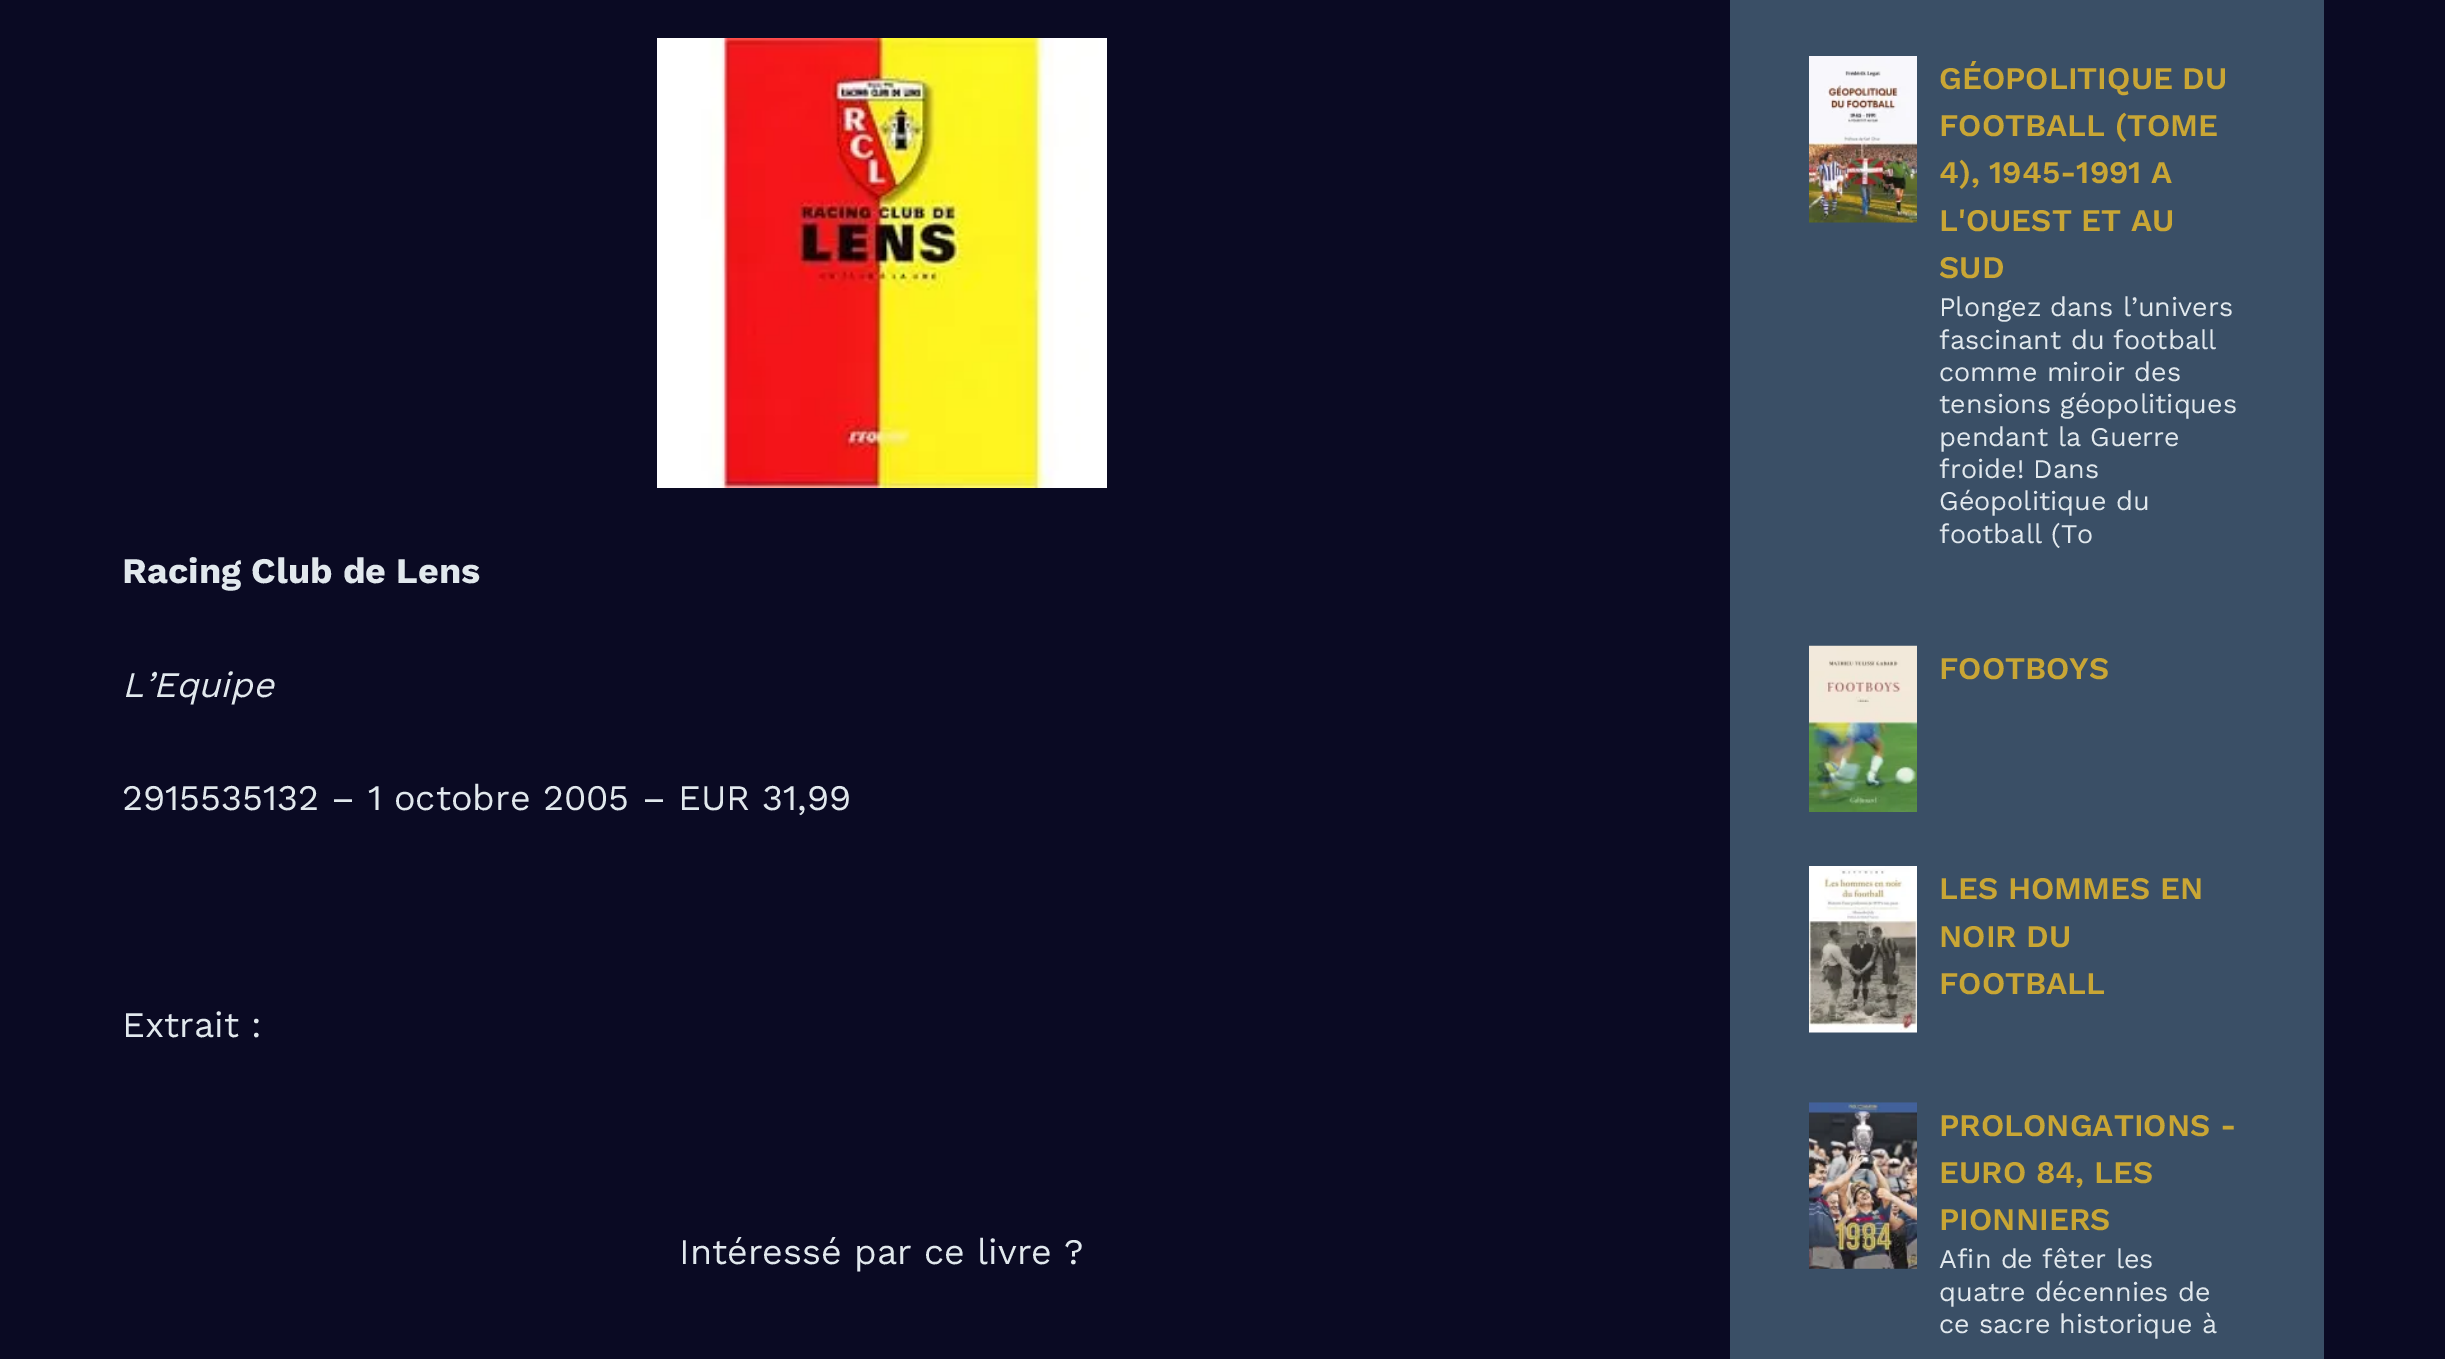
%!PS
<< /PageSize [2445 1359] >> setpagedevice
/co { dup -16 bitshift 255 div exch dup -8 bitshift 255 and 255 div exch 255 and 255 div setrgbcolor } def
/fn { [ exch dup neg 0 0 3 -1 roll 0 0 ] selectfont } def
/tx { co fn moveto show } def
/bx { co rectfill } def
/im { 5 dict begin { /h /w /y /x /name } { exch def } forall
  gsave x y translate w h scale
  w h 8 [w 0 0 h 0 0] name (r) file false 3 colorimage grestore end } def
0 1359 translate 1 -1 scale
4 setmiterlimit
0 0 2445 1359 16#0A0A23 bx
(media/1.raw) 657 38 450 450 im
1730 0 594 1359 16#3A4F66 bx
(media/2.raw) 1809 56 108 167 im
(media/3.raw) 1809 645 108 167 im
(media/4.raw) 1809 866 108 167 im
(media/5.raw) 1809 1102 108 167 im
(Racing Club de Lens) 122 583 /WorkSans-Bold 36 16#E1E8ED tx
(L’Equipe) 122 697 /WorkSans-Italic 36 16#E1E8ED tx
(2915535132 – 1 octobre 2005 – EUR 31,99) 122 810 /WorkSans-Regular 36 16#E1E8ED tx
(Extrait :) 122 1037 /WorkSans-Regular 36 16#E1E8ED tx
(Intéressé par ce livre ?) 679 1264 /WorkSans-Regular 36 16#E1E8ED tx
(GÉOPOLITIQUE DU) 1939 89 /WorkSans-SemiBold 31.5 16#C9A635 tx
(FOOTBALL \(TOME) 1939 136 /WorkSans-SemiBold 31.5 16#C9A635 tx
(4\), 1945-1991 A) 1939 183 /WorkSans-SemiBold 31.5 16#C9A635 tx
(L'OUEST ET AU) 1939 231 /WorkSans-SemiBold 31.5 16#C9A635 tx
(SUD) 1939 278 /WorkSans-SemiBold 31.5 16#C9A635 tx
(Plongez dans l’univers) 1939 316 /WorkSans-Regular 27 16#E1E8ED tx
(fascinant du football) 1939 349 /WorkSans-Regular 27 16#E1E8ED tx
(comme miroir des) 1939 381 /WorkSans-Regular 27 16#E1E8ED tx
(tensions géopolitiques) 1939 413 /WorkSans-Regular 27 16#E1E8ED tx
(pendant la Guerre) 1939 446 /WorkSans-Regular 27 16#E1E8ED tx
(froide! Dans) 1939 478 /WorkSans-Regular 27 16#E1E8ED tx
(Géopolitique du) 1939 510 /WorkSans-Regular 27 16#E1E8ED tx
(football \(To) 1939 543 /WorkSans-Regular 27 16#E1E8ED tx
(FOOTBOYS) 1939 679 /WorkSans-SemiBold 31.5 16#C9A635 tx
(LES HOMMES EN) 1939 899 /WorkSans-SemiBold 31.5 16#C9A635 tx
(NOIR DU) 1939 947 /WorkSans-SemiBold 31.5 16#C9A635 tx
(FOOTBALL) 1939 994 /WorkSans-SemiBold 31.5 16#C9A635 tx
(PROLONGATIONS -) 1939 1136 /WorkSans-SemiBold 31.5 16#C9A635 tx
(EURO 84, LES) 1939 1183 /WorkSans-SemiBold 31.5 16#C9A635 tx
(PIONNIERS) 1939 1230 /WorkSans-SemiBold 31.5 16#C9A635 tx
(Afin de fêter les) 1939 1268 /WorkSans-Regular 27 16#E1E8ED tx
(quatre décennies de) 1939 1301 /WorkSans-Regular 27 16#E1E8ED tx
(ce sacre historique à) 1939 1333 /WorkSans-Regular 27 16#E1E8ED tx
showpage
